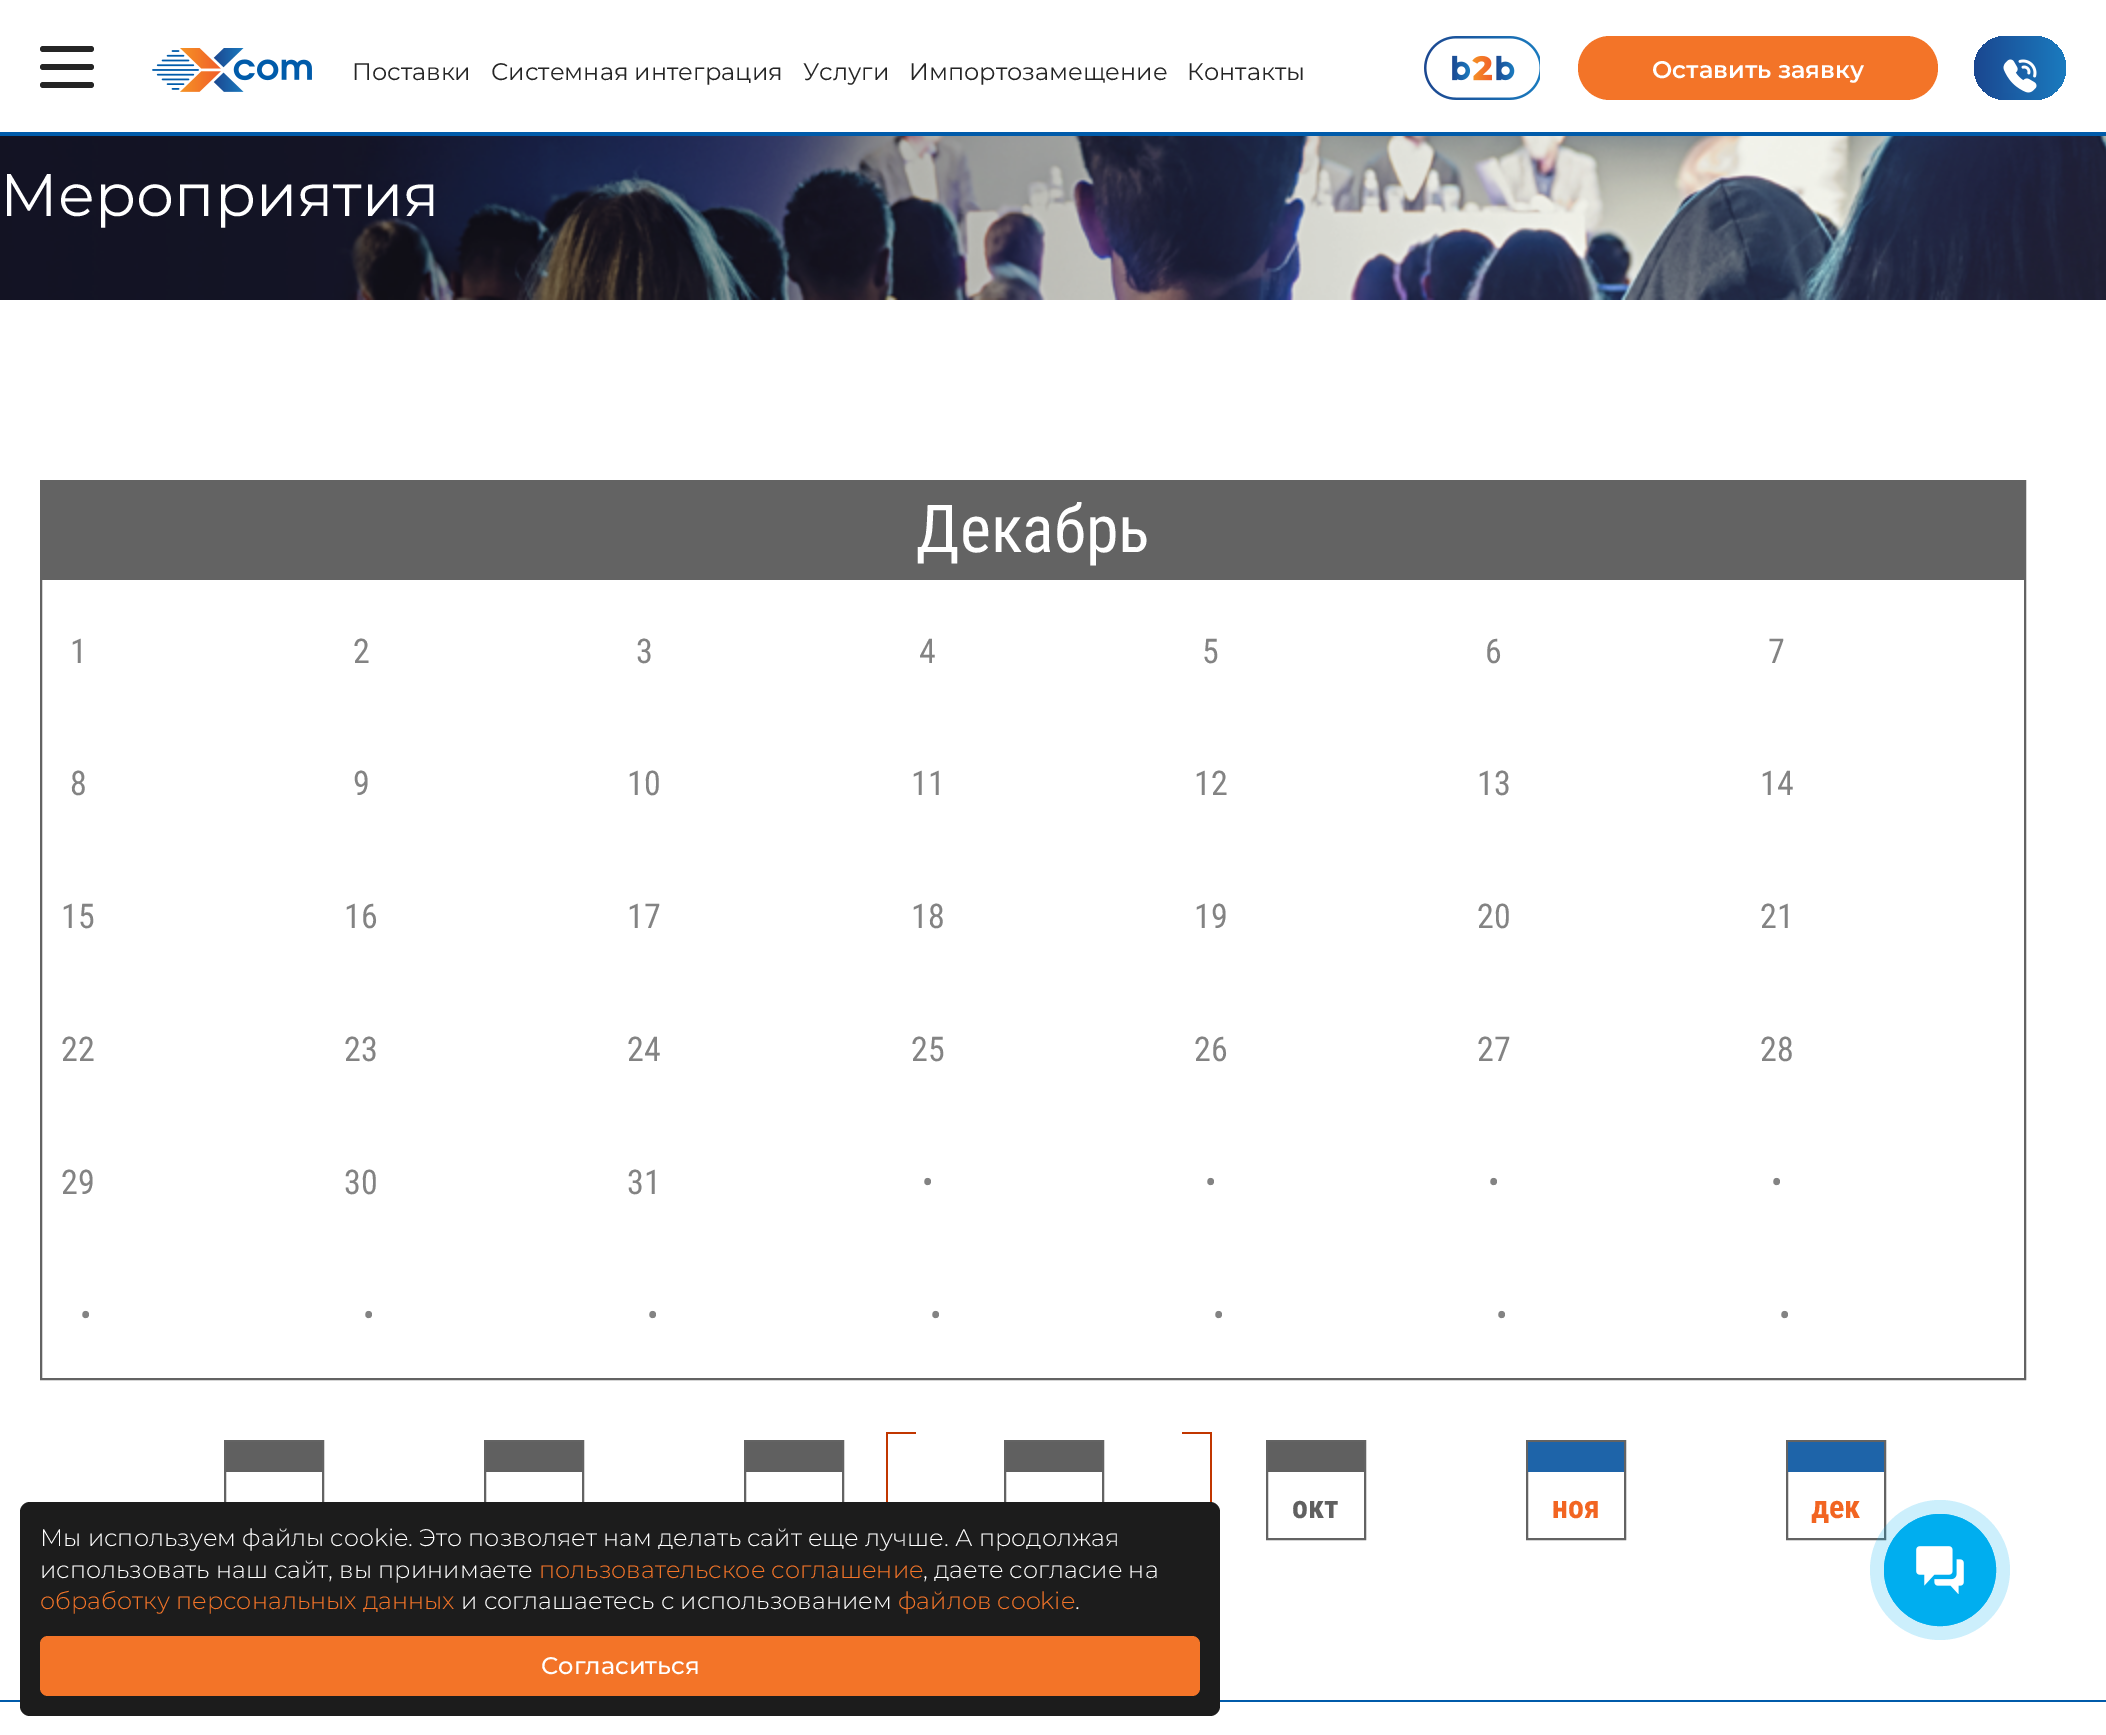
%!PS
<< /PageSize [2106 1735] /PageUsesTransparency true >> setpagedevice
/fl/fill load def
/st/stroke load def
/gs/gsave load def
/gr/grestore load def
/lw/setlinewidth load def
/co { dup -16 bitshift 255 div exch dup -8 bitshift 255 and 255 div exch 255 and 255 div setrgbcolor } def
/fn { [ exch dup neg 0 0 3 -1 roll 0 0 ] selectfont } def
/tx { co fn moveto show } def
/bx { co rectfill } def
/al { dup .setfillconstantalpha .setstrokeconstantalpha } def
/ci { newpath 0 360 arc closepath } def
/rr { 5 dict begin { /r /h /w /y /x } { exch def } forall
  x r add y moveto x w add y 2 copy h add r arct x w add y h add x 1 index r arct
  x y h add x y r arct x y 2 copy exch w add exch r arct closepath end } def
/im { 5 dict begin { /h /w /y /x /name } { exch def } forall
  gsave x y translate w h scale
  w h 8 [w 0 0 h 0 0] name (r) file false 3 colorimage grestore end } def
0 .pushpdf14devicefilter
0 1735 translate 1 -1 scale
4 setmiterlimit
0 0 2106 1735 16#FFFFFF bx
0 132 2106 4 16#005BAA bx
16#252525 co
40 82 54 6 3 rr fl
40 46 54 6 3 rr fl
40 64 54 6 3 rr fl
(media/1.raw) 152 48 160 44 im
(media/2.raw) 1424 36 116 64 im
16#F37428 co
1578 36 360 64 32 rr fl
gs 1974 36 92 64 32 rr clip newpath
<< /ShadingType 2 /ColorSpace /DeviceRGB /Coords [1974 68 2066 68] /Extend [true true] /Function << /FunctionType 2 /Domain [0 1] /C0 [.106 .278 .565] /C1 [.102 .482 .749] /N 1 >> >> shfill gr
(media/3.raw) 2003 59 34 34 im
(media/4.raw) 0 136 2106 164 im
16#636363 co
2 lw
41 481 1984 898 rectstroke
42 482 1982 98 16#636363 bx
886 1432 30 2 16#C13600 bx
886 1432 2 70 16#C13600 bx
1182 1432 30 2 16#C13600 bx
1210 1432 2 71 16#C13600 bx
16#636363 co
225 1441 98 98 rectstroke
226 1442 96 30 16#606060 bx
16#636363 co
485 1441 98 98 rectstroke
486 1442 96 30 16#606060 bx
16#636363 co
745 1441 98 98 rectstroke
746 1442 96 30 16#606060 bx
16#636363 co
1005 1441 98 98 rectstroke
1006 1442 96 30 16#606060 bx
16#636363 co
1267 1441 98 98 rectstroke
1268 1442 96 30 16#606060 bx
16#636363 co
1527 1441 98 98 rectstroke
1528 1442 96 30 16#1E64A9 bx
16#636363 co
1787 1441 98 98 rectstroke
1788 1442 96 30 16#1E64A9 bx
0 1700 2106 2 16#005BAA bx
16#1C1C1C co
20 1502 1200 214 10 rr fl
16#F37428 co
40 1636 1160 60 8 rr fl
0.2 al
16#00AEEF co
1940 1570 70 ci fl
1 al
1940 1570 55 ci st
1940 1570 56 ci fl
(media/5.raw) 1916 1546 48 48 im
(Поставки) 352 80 /Montserrat-Regular 24 16#252525 tx
(Системная интеграция) 491 80 /Montserrat-Regular 24 16#252525 tx
(Услуги) 803 80 /Montserrat-Regular 24 16#252525 tx
(Импортозамещение) 909 80 /Montserrat-Regular 24 16#252525 tx
(Контакты) 1187 80 /Montserrat-Regular 24 16#252525 tx
(Оставить заявку) 1652 78 /Montserrat-SemiBold 24 16#FFFFFF tx
(Мероприятия) 0 216 /Montserrat-Regular 60 16#FFFFFF tx
(Декабрь) 916 552 /RobotoCondensed-Regular 66 16#FFFFFF tx
(1) 70 663 /RobotoCondensed-Regular 34 16#838383 tx
(2) 353 663 /RobotoCondensed-Regular 34 16#838383 tx
(3) 636 663 /RobotoCondensed-Regular 34 16#838383 tx
(4) 919 663 /RobotoCondensed-Regular 34 16#838383 tx
(5) 1202 663 /RobotoCondensed-Regular 34 16#838383 tx
(6) 1485 663 /RobotoCondensed-Regular 34 16#838383 tx
(7) 1768 663 /RobotoCondensed-Regular 34 16#838383 tx
(8) 70 795 /RobotoCondensed-Regular 34 16#838383 tx
(9) 353 795 /RobotoCondensed-Regular 34 16#838383 tx
(10) 627 795 /RobotoCondensed-Regular 34 16#838383 tx
(11) 911 795 /RobotoCondensed-Regular 34 16#838383 tx
(12) 1194 795 /RobotoCondensed-Regular 34 16#838383 tx
(13) 1477 795 /RobotoCondensed-Regular 34 16#838383 tx
(14) 1760 795 /RobotoCondensed-Regular 34 16#838383 tx
(15) 61 928 /RobotoCondensed-Regular 34 16#838383 tx
(16) 344 928 /RobotoCondensed-Regular 34 16#838383 tx
(17) 627 928 /RobotoCondensed-Regular 34 16#838383 tx
(18) 911 928 /RobotoCondensed-Regular 34 16#838383 tx
(19) 1194 928 /RobotoCondensed-Regular 34 16#838383 tx
(20) 1477 928 /RobotoCondensed-Regular 34 16#838383 tx
(21) 1760 928 /RobotoCondensed-Regular 34 16#838383 tx
(22) 61 1061 /RobotoCondensed-Regular 34 16#838383 tx
(23) 344 1061 /RobotoCondensed-Regular 34 16#838383 tx
(24) 627 1061 /RobotoCondensed-Regular 34 16#838383 tx
(25) 911 1061 /RobotoCondensed-Regular 34 16#838383 tx
(26) 1194 1061 /RobotoCondensed-Regular 34 16#838383 tx
(27) 1477 1061 /RobotoCondensed-Regular 34 16#838383 tx
(28) 1760 1061 /RobotoCondensed-Regular 34 16#838383 tx
(29) 61 1194 /RobotoCondensed-Regular 34 16#838383 tx
(30) 344 1194 /RobotoCondensed-Regular 34 16#838383 tx
(31) 627 1194 /RobotoCondensed-Regular 34 16#838383 tx
(•) 922 1194 /RobotoCondensed-Regular 34 16#838383 tx
(•) 1205 1194 /RobotoCondensed-Regular 34 16#838383 tx
(•) 1488 1194 /RobotoCondensed-Regular 34 16#838383 tx
(•) 1771 1194 /RobotoCondensed-Regular 34 16#838383 tx
(•) 80 1327 /RobotoCondensed-Regular 34 16#838383 tx
(•) 363 1327 /RobotoCondensed-Regular 34 16#838383 tx
(•) 647 1327 /RobotoCondensed-Regular 34 16#838383 tx
(•) 930 1327 /RobotoCondensed-Regular 34 16#838383 tx
(•) 1213 1327 /RobotoCondensed-Regular 34 16#838383 tx
(•) 1496 1327 /RobotoCondensed-Regular 34 16#838383 tx
(•) 1779 1327 /RobotoCondensed-Regular 34 16#838383 tx
(окт) 1292 1518 /RobotoCondensed-Bold 32 16#606060 tx
(ноя) 1552 1518 /RobotoCondensed-Bold 32 16#F26522 tx
(дек) 1811 1518 /RobotoCondensed-Bold 32 16#F26522 tx
(Мы используем файлы cookie. Это позволяет нам делать сайт еще лучше. А продолжая) 40 1546 /Montserrat-Light 24 16#FFFFFF tx
(использовать наш сайт, вы принимаете) 40 1578 /Montserrat-Light 24 16#FFFFFF tx
(пользовательское соглашение) 539 1578 /Montserrat-Light 24 16#F37428 tx
(, даете согласие на) 923 1578 /Montserrat-Light 24 16#FFFFFF tx
(обработку персональных данных) 40 1609 /Montserrat-Light 24 16#F37428 tx
(и соглашаетесь с использованием) 461 1609 /Montserrat-Light 24 16#FFFFFF tx
(файлов cookie) 898 1609 /Montserrat-Light 24 16#F37428 tx
(.) 1075 1609 /Montserrat-Light 24 16#FFFFFF tx
(Согласиться) 541 1674 /Montserrat-Medium 24 16#FFFFFF tx
.poppdf14devicefilter showpage
